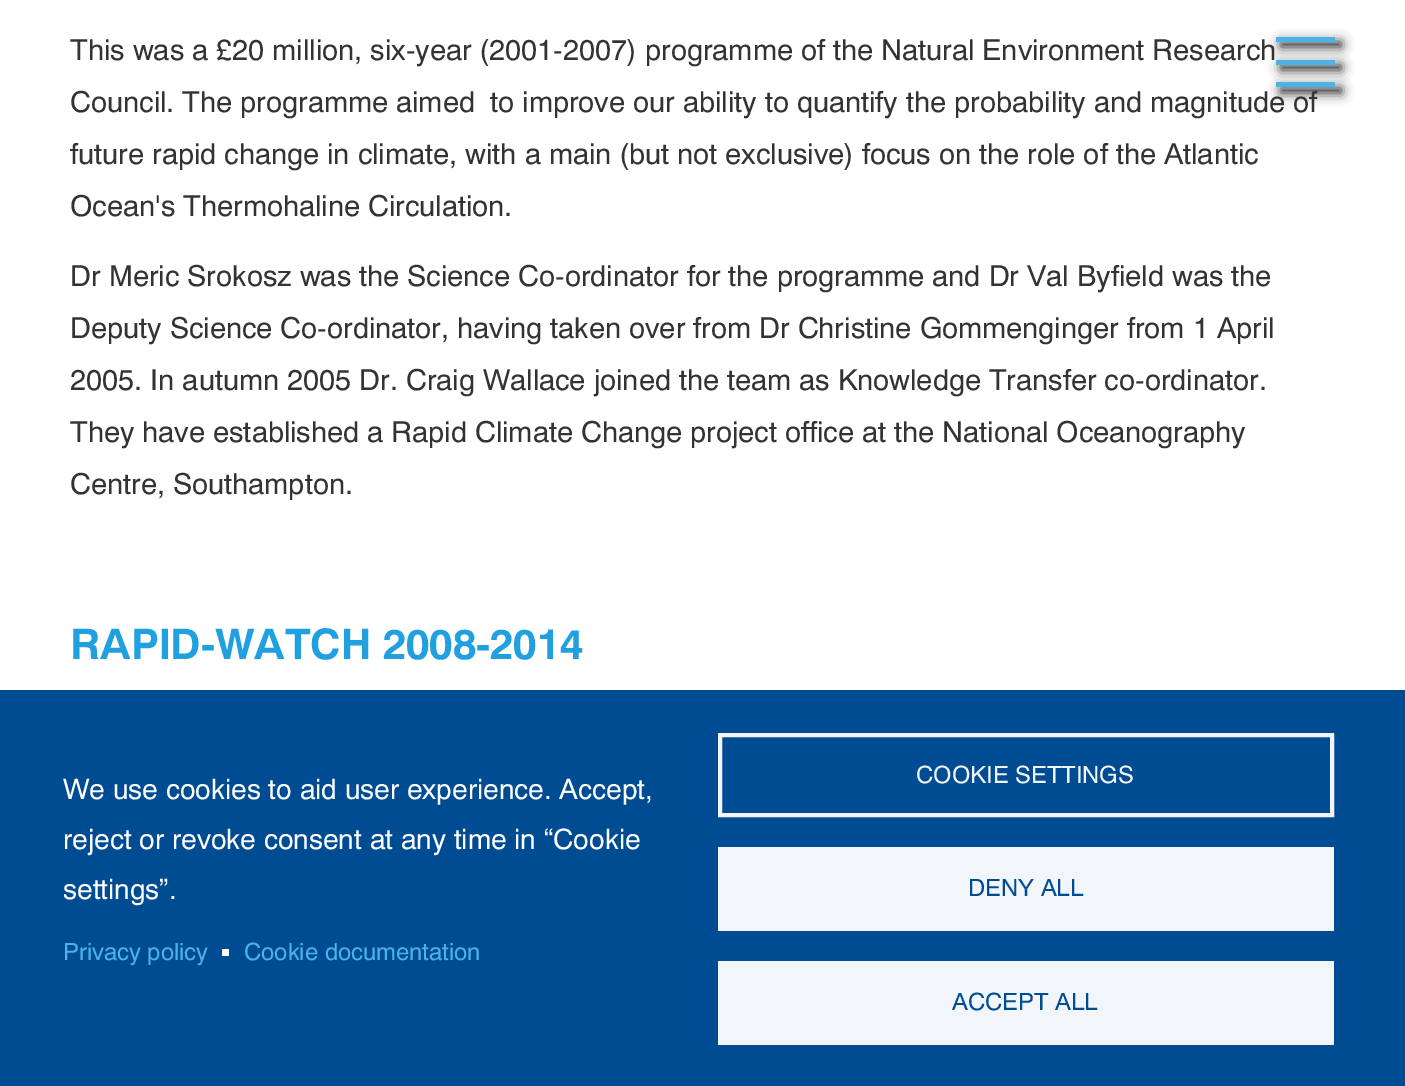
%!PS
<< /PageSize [1405 1086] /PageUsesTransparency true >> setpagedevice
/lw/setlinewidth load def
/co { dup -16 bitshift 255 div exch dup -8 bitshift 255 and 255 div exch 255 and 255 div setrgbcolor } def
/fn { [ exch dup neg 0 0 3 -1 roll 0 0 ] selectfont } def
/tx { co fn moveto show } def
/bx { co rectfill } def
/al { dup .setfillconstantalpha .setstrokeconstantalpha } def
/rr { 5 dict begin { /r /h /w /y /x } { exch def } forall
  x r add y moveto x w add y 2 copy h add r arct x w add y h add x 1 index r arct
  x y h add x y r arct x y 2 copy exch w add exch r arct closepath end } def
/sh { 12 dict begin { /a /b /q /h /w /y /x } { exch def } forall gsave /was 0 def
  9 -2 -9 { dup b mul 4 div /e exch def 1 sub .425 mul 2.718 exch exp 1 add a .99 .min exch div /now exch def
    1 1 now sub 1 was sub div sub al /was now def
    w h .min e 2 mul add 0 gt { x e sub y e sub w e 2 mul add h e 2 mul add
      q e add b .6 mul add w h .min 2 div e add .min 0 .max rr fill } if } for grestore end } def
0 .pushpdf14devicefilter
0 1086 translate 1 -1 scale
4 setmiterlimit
0 0 1405 1086 16#FFFFFF bx
16#222222 co
1281 65 60 5 0 6 1 sh
1276 60 59 5 16#4DB3E6 bx
16#222222 co
1281 42 60 5 0 6 1 sh
1276 37 59 5 16#4DB3E6 bx
16#222222 co
1281 88 60 5 0 6 1 sh
1276 82 59 5 16#4DB3E6 bx
0 690 1405 396 16#004C93 bx
222 949 7 7 16#FFFFFF bx
16#F2F6FA co
4 lw
720 735 612 80 rectstroke
718 847 616 84 16#F2F6FA bx
718 961 616 84 16#F2F6FA bx
(This was a £20 million, six-year \(2001-2007\) programme of the Natural Environment Research) 70 60 /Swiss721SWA-Regular 28.9 16#333333 tx
(Council. The programme aimed) 70 112 /Swiss721SWA-Regular 28.9 16#333333 tx
(to improve our ability to quantify the probability and magnitude of) 490 112 /Swiss721SWA-Regular 28.9 16#333333 tx
(future rapid change in climate, with a main \(but not exclusive\) focus on the role of the Atlantic) 70 164 /Swiss721SWA-Regular 28.9 16#333333 tx
(Ocean's Thermohaline Circulation.) 70 216 /Swiss721SWA-Regular 28.9 16#333333 tx
(Dr Meric Srokosz was the Science Co-ordinator for the programme and Dr Val Byfield was the) 70 286 /Swiss721SWA-Regular 28.9 16#333333 tx
(Deputy Science Co-ordinator, having taken over from Dr Christine Gommenginger from 1 April) 70 338 /Swiss721SWA-Regular 28.9 16#333333 tx
(2005. In autumn 2005 Dr. Craig Wallace joined the team as Knowledge Transfer co-ordinator.) 70 390 /Swiss721SWA-Regular 28.9 16#333333 tx
(They have established a Rapid Climate Change project office at the National Oceanography) 70 442 /Swiss721SWA-Regular 28.9 16#333333 tx
(Centre, Southampton.) 70 494 /Swiss721SWA-Regular 28.9 16#333333 tx
(RAPID-WATCH 2008-2014) 70 659 /Swiss721SWA-Bold 42 16#20A0E0 tx
(We use cookies to aid user experience. Accept,) 63 799 /Swiss721SWA-Regular 28 16#FFFFFF tx
(reject or revoke consent at any time in “Cookie) 63 849 /Swiss721SWA-Regular 28 16#FFFFFF tx
(settings”.) 63 899 /Swiss721SWA-Regular 28 16#FFFFFF tx
(Privacy policy) 63 960 /Swiss721SWA-Regular 23.75 16#4DB3E6 tx
(Cookie documentation) 244 960 /Swiss721SWA-Regular 23.75 16#4DB3E6 tx
(COOKIE SETTINGS) 916 783 /Swiss721SWA-Regular 23.75 16#F2F6FA tx
(DENY ALL) 968 896 /Swiss721SWA-Regular 23.75 16#004C93 tx
(ACCEPT ALL) 952 1010 /Swiss721SWA-Regular 23.75 16#004C93 tx
.poppdf14devicefilter showpage
